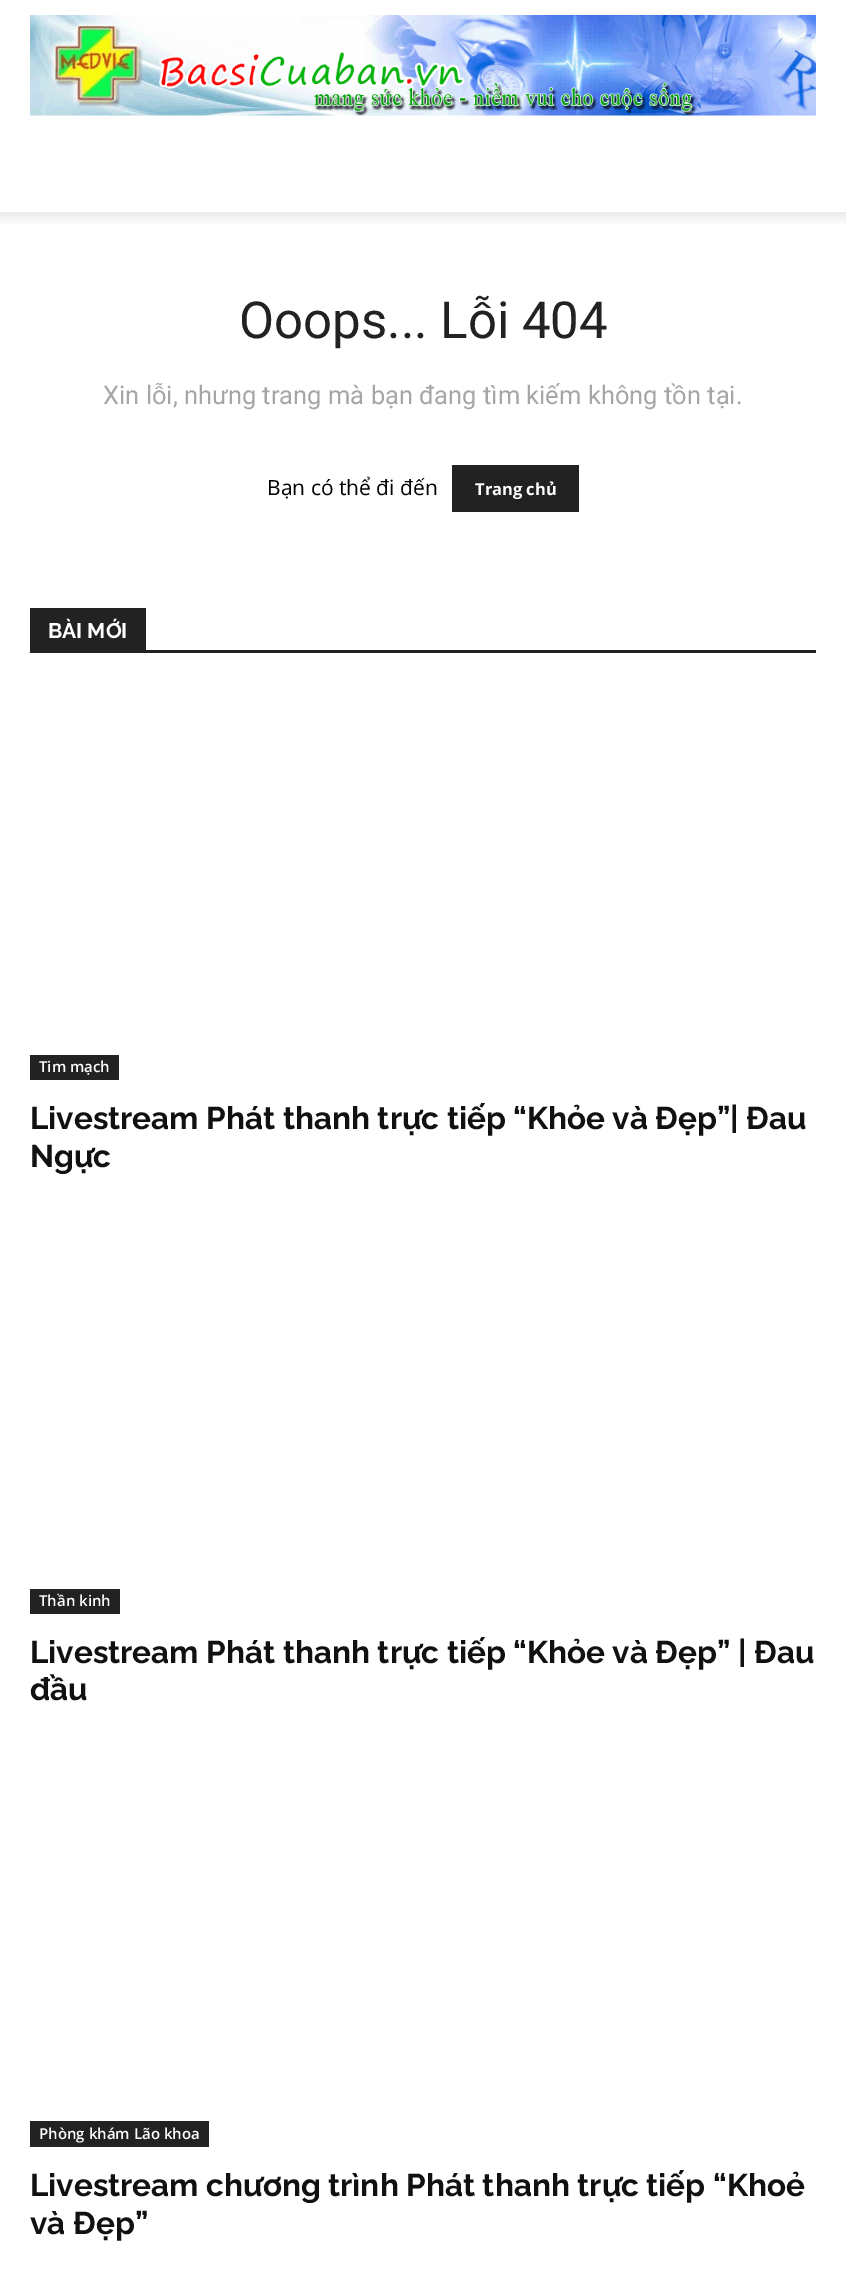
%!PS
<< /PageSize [846 2281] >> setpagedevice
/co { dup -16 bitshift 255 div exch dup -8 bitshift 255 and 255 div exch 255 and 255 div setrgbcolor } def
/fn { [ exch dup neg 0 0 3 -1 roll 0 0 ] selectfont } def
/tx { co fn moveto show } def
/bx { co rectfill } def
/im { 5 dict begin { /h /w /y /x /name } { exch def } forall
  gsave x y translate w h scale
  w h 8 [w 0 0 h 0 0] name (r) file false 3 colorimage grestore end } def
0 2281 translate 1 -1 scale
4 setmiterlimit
0 0 846 2281 16#FFFFFF bx
(media/1.raw) 30 15 786 101 im
(media/2.raw) 0 212 846 12 im
452 465 127 47 16#222222 bx
30 650 786 3 16#222222 bx
30 608 116 42 16#222222 bx
30 1055 89 25 16#222222 bx
30 1589 90 25 16#222222 bx
30 2121 179 26 16#222222 bx
(Ooops... Lỗi 404) 239 338 /Roboto-Regular 51 16#222222 tx
(Xin lỗi, nhưng trang mà bạn đang tìm kiếm không tồn tại.) 103 404 /Roboto-Regular 25.5 16#A6A6A6 tx
(Bạn có thể đi đến) 267 495 /OpenSans-Regular 21 16#000000 tx
(Trang chủ) 475 495 /OpenSans-Bold 16.5 16#FFFFFF tx
(BÀI MỚI) 48 638 /Raleway-Bold 21 16#FFFFFF tx
(Tim mạch) 39 1072 /OpenSans-SemiBold 15 16#FFFFFF tx
(Livestream Phát thanh trực tiếp “Khỏe và Đẹp”| Đau) 30 1129 /Raleway-Bold 31.5 16#111111 tx
(Ngực) 30 1167 /Raleway-Bold 31.5 16#111111 tx
(Thần kinh) 39 1606 /OpenSans-SemiBold 15 16#FFFFFF tx
(Livestream Phát thanh trực tiếp “Khỏe và Đẹp” | Đau) 30 1663 /Raleway-Bold 31.5 16#111111 tx
(đầu) 30 1700 /Raleway-Bold 31.5 16#111111 tx
(Phòng khám Lão khoa) 39 2139 /OpenSans-SemiBold 15 16#FFFFFF tx
(Livestream chương trình Phát thanh trực tiếp “Khoẻ) 30 2196 /Raleway-Bold 31.5 16#111111 tx
(và Đẹp”) 30 2234 /Raleway-Bold 31.5 16#111111 tx
showpage
